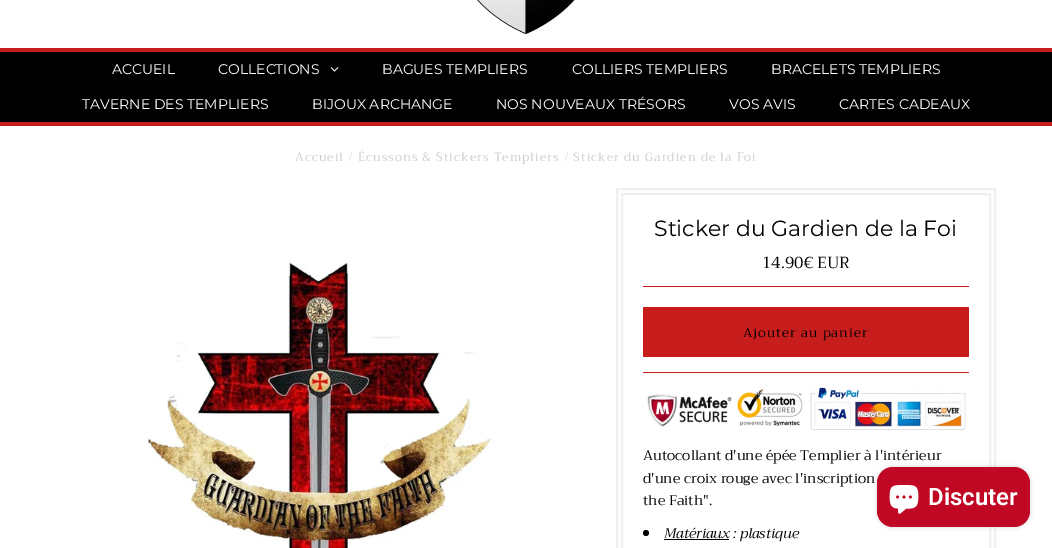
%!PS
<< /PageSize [1052 548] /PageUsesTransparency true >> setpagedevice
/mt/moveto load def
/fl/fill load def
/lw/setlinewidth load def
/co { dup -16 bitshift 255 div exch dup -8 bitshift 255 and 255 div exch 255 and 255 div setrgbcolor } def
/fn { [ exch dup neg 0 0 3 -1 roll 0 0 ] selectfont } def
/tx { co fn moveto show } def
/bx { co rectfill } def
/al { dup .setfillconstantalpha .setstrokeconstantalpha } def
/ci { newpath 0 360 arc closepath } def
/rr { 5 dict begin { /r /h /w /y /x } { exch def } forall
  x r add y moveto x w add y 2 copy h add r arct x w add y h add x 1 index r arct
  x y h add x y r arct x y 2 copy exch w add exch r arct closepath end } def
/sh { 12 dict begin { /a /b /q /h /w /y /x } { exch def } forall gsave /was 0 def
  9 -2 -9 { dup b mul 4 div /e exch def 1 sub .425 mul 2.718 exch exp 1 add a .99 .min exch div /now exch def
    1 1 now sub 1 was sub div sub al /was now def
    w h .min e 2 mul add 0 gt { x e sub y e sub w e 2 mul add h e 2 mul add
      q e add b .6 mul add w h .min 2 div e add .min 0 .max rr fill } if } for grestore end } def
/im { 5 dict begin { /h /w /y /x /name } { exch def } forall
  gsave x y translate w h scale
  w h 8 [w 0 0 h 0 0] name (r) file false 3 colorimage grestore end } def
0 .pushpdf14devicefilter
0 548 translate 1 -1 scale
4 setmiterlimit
0 0 1052 548 16#FFFFFF bx
(media/1.raw) 477 0 98 34 im
0 52 1052 70 16#000000 bx
0 48 1052 4 16#C71D1D bx
0 122 1052 4 16#C71D1D bx
(media/2.raw) 330 67 9 5 im
(media/3.raw) 146 262 345 286 im
16#F0F0F0 co
2 lw
617 189 378 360 rectstroke
622 194 368 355 rectstroke
643 372 326 1 16#C71D1D bx
643 286 326 1 16#C71D1D bx
643 307 326 50 16#C71D1D bx
(media/4.raw) 647 387 319 44 im
16#000000 co
646 533 3 ci fl
664 539 65 1 16#000000 bx
877 467 153 60 16 2.5 .15 sh
16#C00825 co
877 467 153 60 16 rr fl
(media/5.raw) 889 485 30 29 im
(ACCUEIL) 112 74 /Montserrat-Regular 14 16#FFFFFF tx
(COLLECTIONS) 218 74 /Montserrat-Regular 14 16#FFFFFF tx
(BAGUES TEMPLIERS) 382 74 /Montserrat-Regular 14 16#FFFFFF tx
(COLLIERS TEMPLIERS) 572 74 /Montserrat-Regular 14 16#FFFFFF tx
(BRACELETS TEMPLIERS) 771 74 /Montserrat-Regular 14 16#FFFFFF tx
(TAVERNE DES TEMPLIERS) 82 109 /Montserrat-Regular 14 16#FFFFFF tx
(BIJOUX ARCHANGE) 312 109 /Montserrat-Regular 14 16#FFFFFF tx
(NOS NOUVEAUX TRÉSORS) 496 109 /Montserrat-Regular 14 16#FFFFFF tx
(VOS AVIS) 729 109 /Montserrat-Regular 14 16#FFFFFF tx
(CARTES CADEAUX) 839 109 /Montserrat-Regular 14 16#FFFFFF tx
/Trirong-Regular 12 fn
16#CCCCCC co
295 161 mt 1 0 (Accueil / Écussons & Stickers Templiers / Sticker du Gardien de la Foi) ashow
(Sticker du Gardien de la Foi) 654 236 /Montserrat-Regular 22 16#000000 tx
(14.90€ EUR) 762 268 /Trirong-Regular 16 16#000000 tx
/Trirong-Regular 13 fn
743 337 mt 1 0 (Ajouter au panier) ashow
(Autocollant d'une épée Templier à l'intérieur) 643 460 /Trirong-Regular 14 16#000000 tx
(d'une croix rouge avec l'inscription) 643 483 /Trirong-Regular 14 16#000000 tx
(the Faith".) 643 505 /Trirong-Regular 14 16#000000 tx
(Matériaux : plastique) 664 538 /Trirong-Italic 14 16#000000 tx
(Discuter) 928 505 /Roboto-SemiBold 24 16#FFFFFF tx
.poppdf14devicefilter showpage
